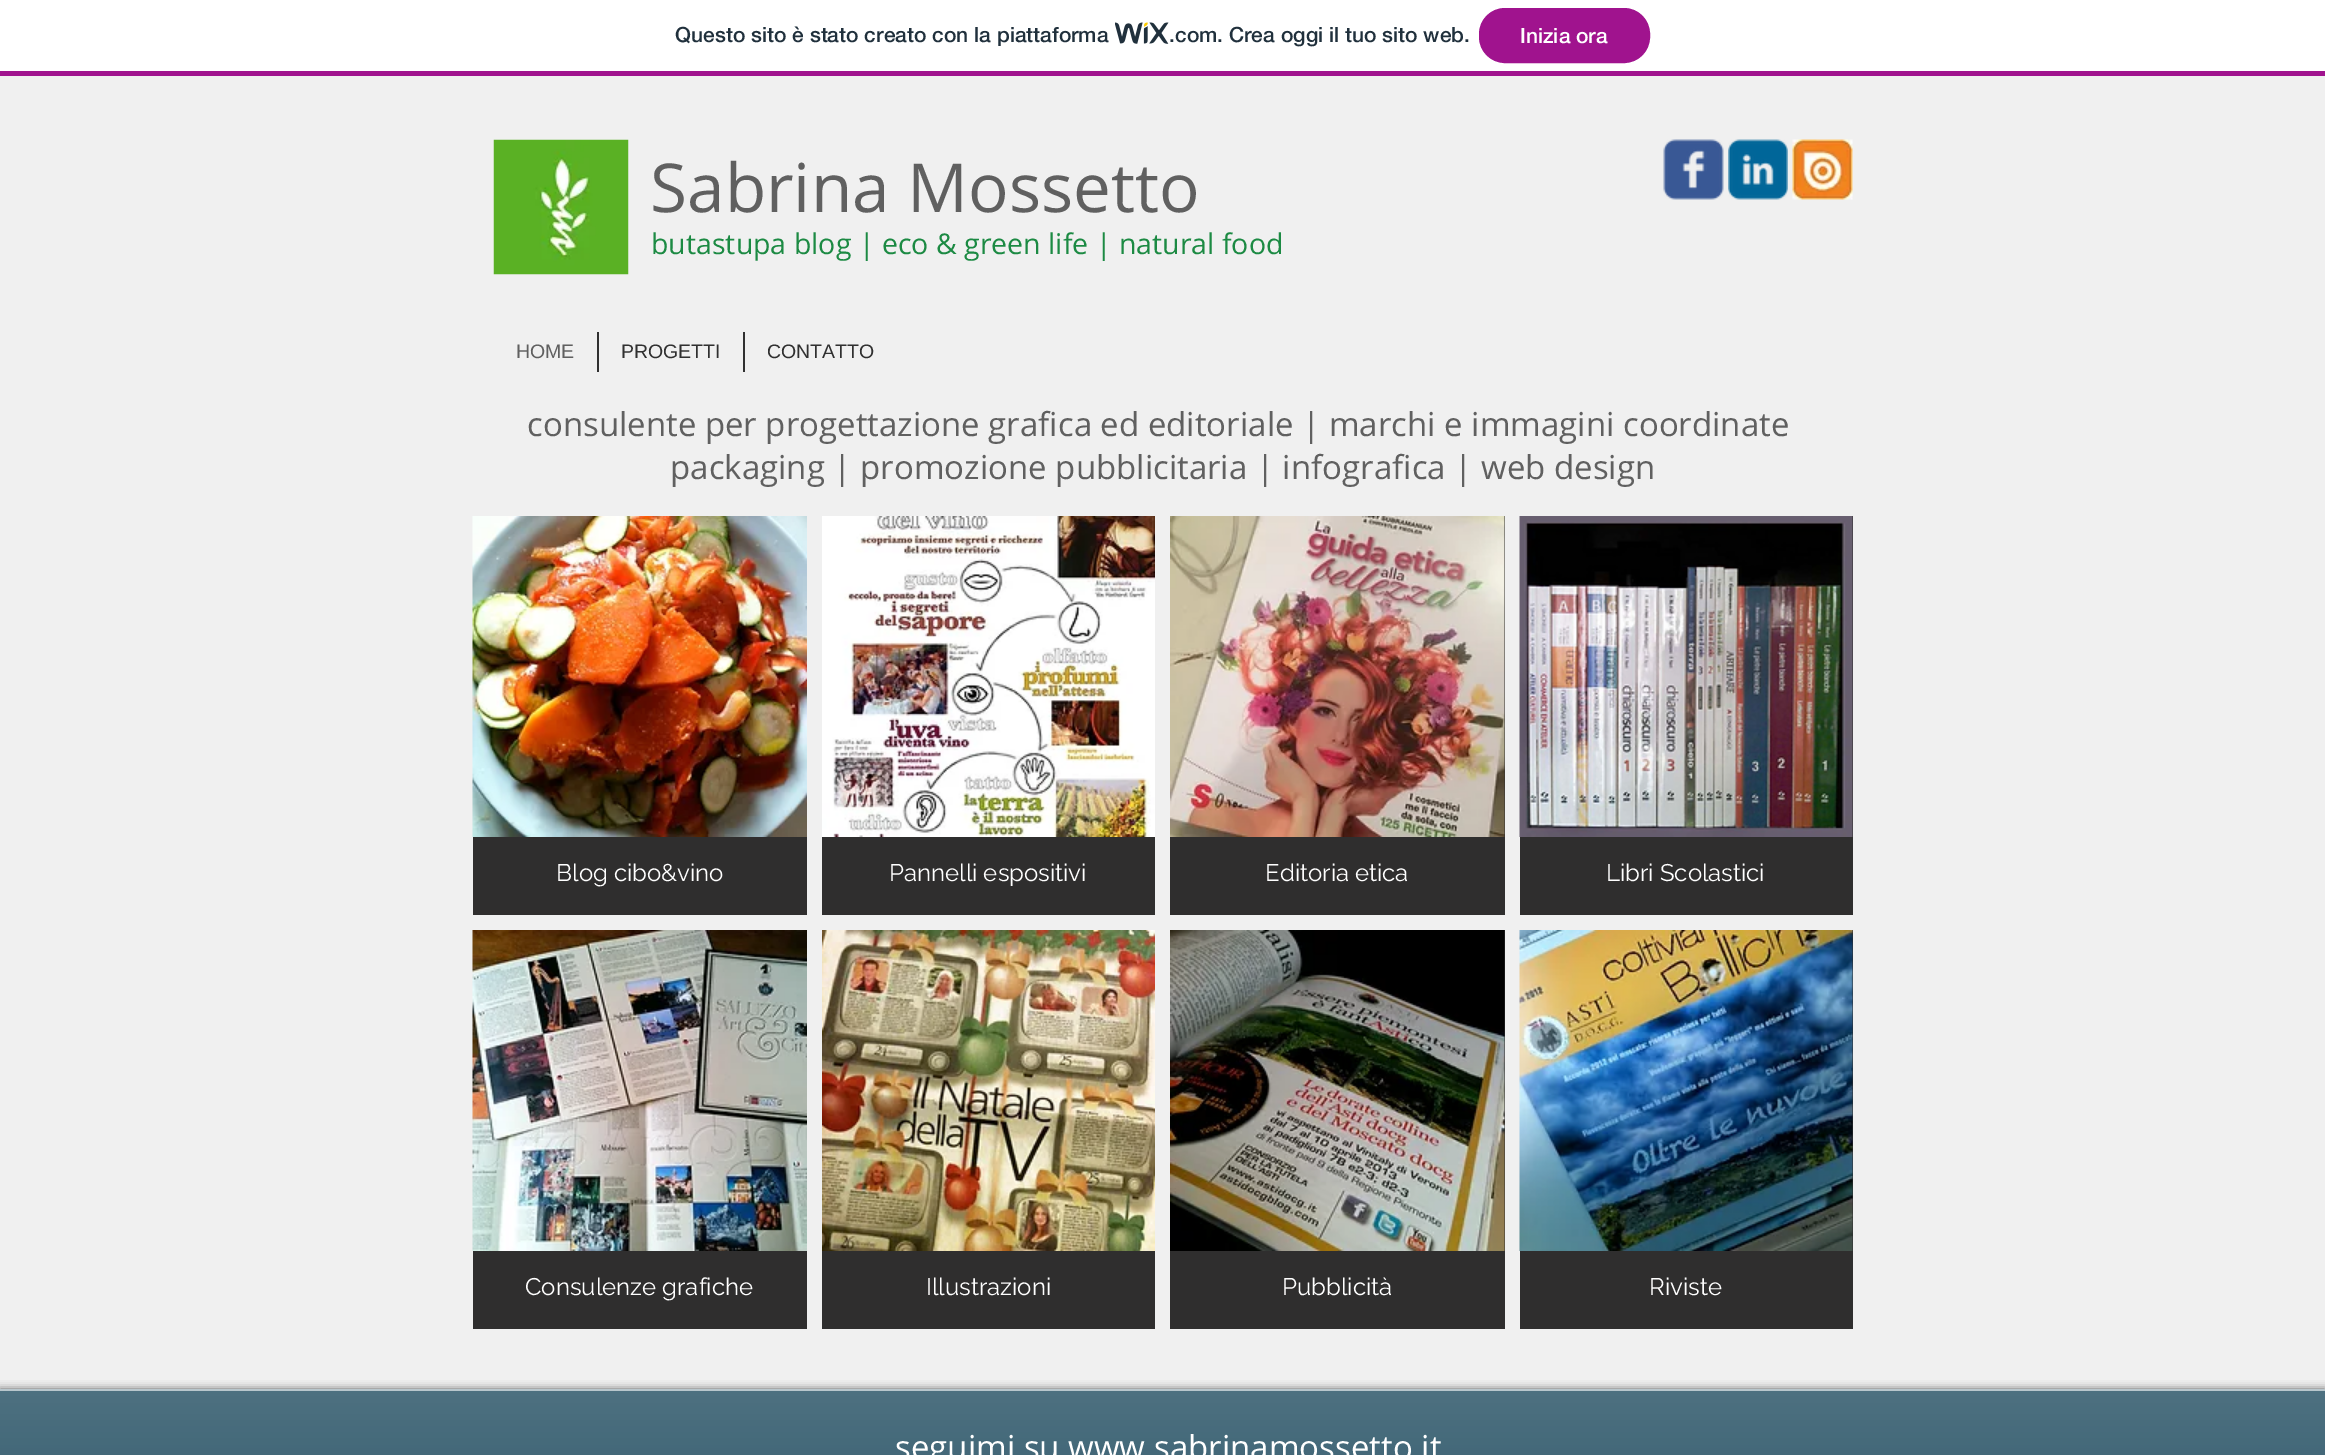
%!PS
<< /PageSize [2325 1455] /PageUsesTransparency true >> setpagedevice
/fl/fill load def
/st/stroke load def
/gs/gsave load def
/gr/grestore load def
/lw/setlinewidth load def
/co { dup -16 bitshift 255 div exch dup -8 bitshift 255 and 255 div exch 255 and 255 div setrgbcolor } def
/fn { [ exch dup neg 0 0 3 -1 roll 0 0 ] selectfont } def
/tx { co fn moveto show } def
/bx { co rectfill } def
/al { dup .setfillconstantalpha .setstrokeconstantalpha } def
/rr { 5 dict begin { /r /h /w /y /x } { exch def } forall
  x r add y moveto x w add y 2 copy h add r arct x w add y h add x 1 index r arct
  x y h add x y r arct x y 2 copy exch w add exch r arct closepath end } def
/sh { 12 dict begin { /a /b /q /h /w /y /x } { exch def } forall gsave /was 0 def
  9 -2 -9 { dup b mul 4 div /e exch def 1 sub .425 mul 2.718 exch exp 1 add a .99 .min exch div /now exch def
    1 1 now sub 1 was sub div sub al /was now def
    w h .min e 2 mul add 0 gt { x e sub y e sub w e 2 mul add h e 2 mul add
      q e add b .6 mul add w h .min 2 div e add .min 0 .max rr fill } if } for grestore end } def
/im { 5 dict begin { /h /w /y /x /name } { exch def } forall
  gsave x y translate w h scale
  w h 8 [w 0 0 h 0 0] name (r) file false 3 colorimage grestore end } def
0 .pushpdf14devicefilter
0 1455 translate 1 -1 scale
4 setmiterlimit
0 0 2325 1455 16#FFFFFF bx
0 71 2325 5 16#A0138E bx
(media/1.raw) 1115 22 54 22 im
1480 9 169 53 25 rr gs fl gr
2 lw
st
0 76 2325 1313 16#F0F0F0 bx
(media/2.raw) 493 139 136 136 im
(media/3.raw) 1663 139 61 61 im
(media/4.raw) 1728 139 60 61 im
(media/5.raw) 1792 139 61 61 im
597 332 2 40 16#303030 bx
743 332 2 40 16#303030 bx
(media/6.raw) 472 516 335 321 im
473 837 334 78 16#2F2E2E bx
(media/7.raw) 822 516 333 321 im
822 837 333 78 16#2F2E2E bx
1504 516 1 321 16#2F2E2E bx
(media/8.raw) 1170 516 335 321 im
1170 837 335 78 16#2F2E2E bx
1852 516 1 321 16#2F2E2E bx
(media/9.raw) 1519 516 334 321 im
1520 837 333 78 16#2F2E2E bx
(media/10.raw) 472 930 335 321 im
473 1251 334 78 16#2F2E2E bx
(media/11.raw) 822 930 333 321 im
822 1251 333 78 16#2F2E2E bx
1504 930 1 321 16#2F2E2E bx
(media/12.raw) 1170 930 335 321 im
1170 1251 335 78 16#2F2E2E bx
1852 930 1 321 16#2F2E2E bx
(media/13.raw) 1519 930 334 321 im
1520 1251 333 78 16#2F2E2E bx
16#000000 co
0 1389 2325 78 0 4 .6 sh
0 1391 2325 64 16#103F54 bx
(media/14.raw) 0 1391 2325 64 im
0 1389 2325 2 16#B8C6CC bx
(Questo sito è stato creato con la piattaforma) 675 42 /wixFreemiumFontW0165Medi-Medium 21 16#20303C tx
(.com. Crea oggi il tuo sito web.) 1169 42 /wixFreemiumFontW0165Medi-Medium 21 16#20303C tx
(Inizia ora) 1520 43 /wixFreemiumFontW0165Medi-Medium 21 16#FFFFFF tx
(Sabrina Mossetto) 650 212 /OpenSans-Regular 67.5 16#606060 tx
(butastupa blog | eco & green life | natural food) 651 254 /OpenSans-Regular 28.5 16#1C8A43 tx
(HOME) 516 358 /LiberationSans-Regular 19.5 16#606060 tx
(PROGETTI) 621 358 /LiberationSans-Regular 19.5 16#303030 tx
(CONTATTO) 767 358 /LiberationSans-Regular 19.5 16#303030 tx
(consulente per progettazione grafica ed editoriale | marchi e immagini coordinate) 527 436 /OpenSans-Regular 33 16#606060 tx
(packaging | promozione pubblicitaria | infografica | web design) 670 479 /OpenSans-Regular 33 16#606060 tx
(Blog cibo&vino) 556 881 /Raleway-Regular 24 16#FFFFFF tx
(Pannelli espositivi) 889 881 /Raleway-Regular 24 16#FFFFFF tx
(Editoria etica) 1265 881 /Raleway-Regular 24 16#FFFFFF tx
(Libri Scolastici) 1606 881 /Raleway-Regular 24 16#FFFFFF tx
(Consulenze grafiche) 525 1295 /Raleway-Regular 24 16#FFFFFF tx
(Illustrazioni) 926 1295 /Raleway-Regular 24 16#FFFFFF tx
(Pubblicità) 1282 1295 /Raleway-Regular 24 16#FFFFFF tx
(Riviste) 1649 1295 /Raleway-Regular 24 16#FFFFFF tx
(seguimi su www.sabrinamossetto.it) 895 1459 /OpenSans-Regular 33 16#FFFFFF tx
.poppdf14devicefilter showpage
